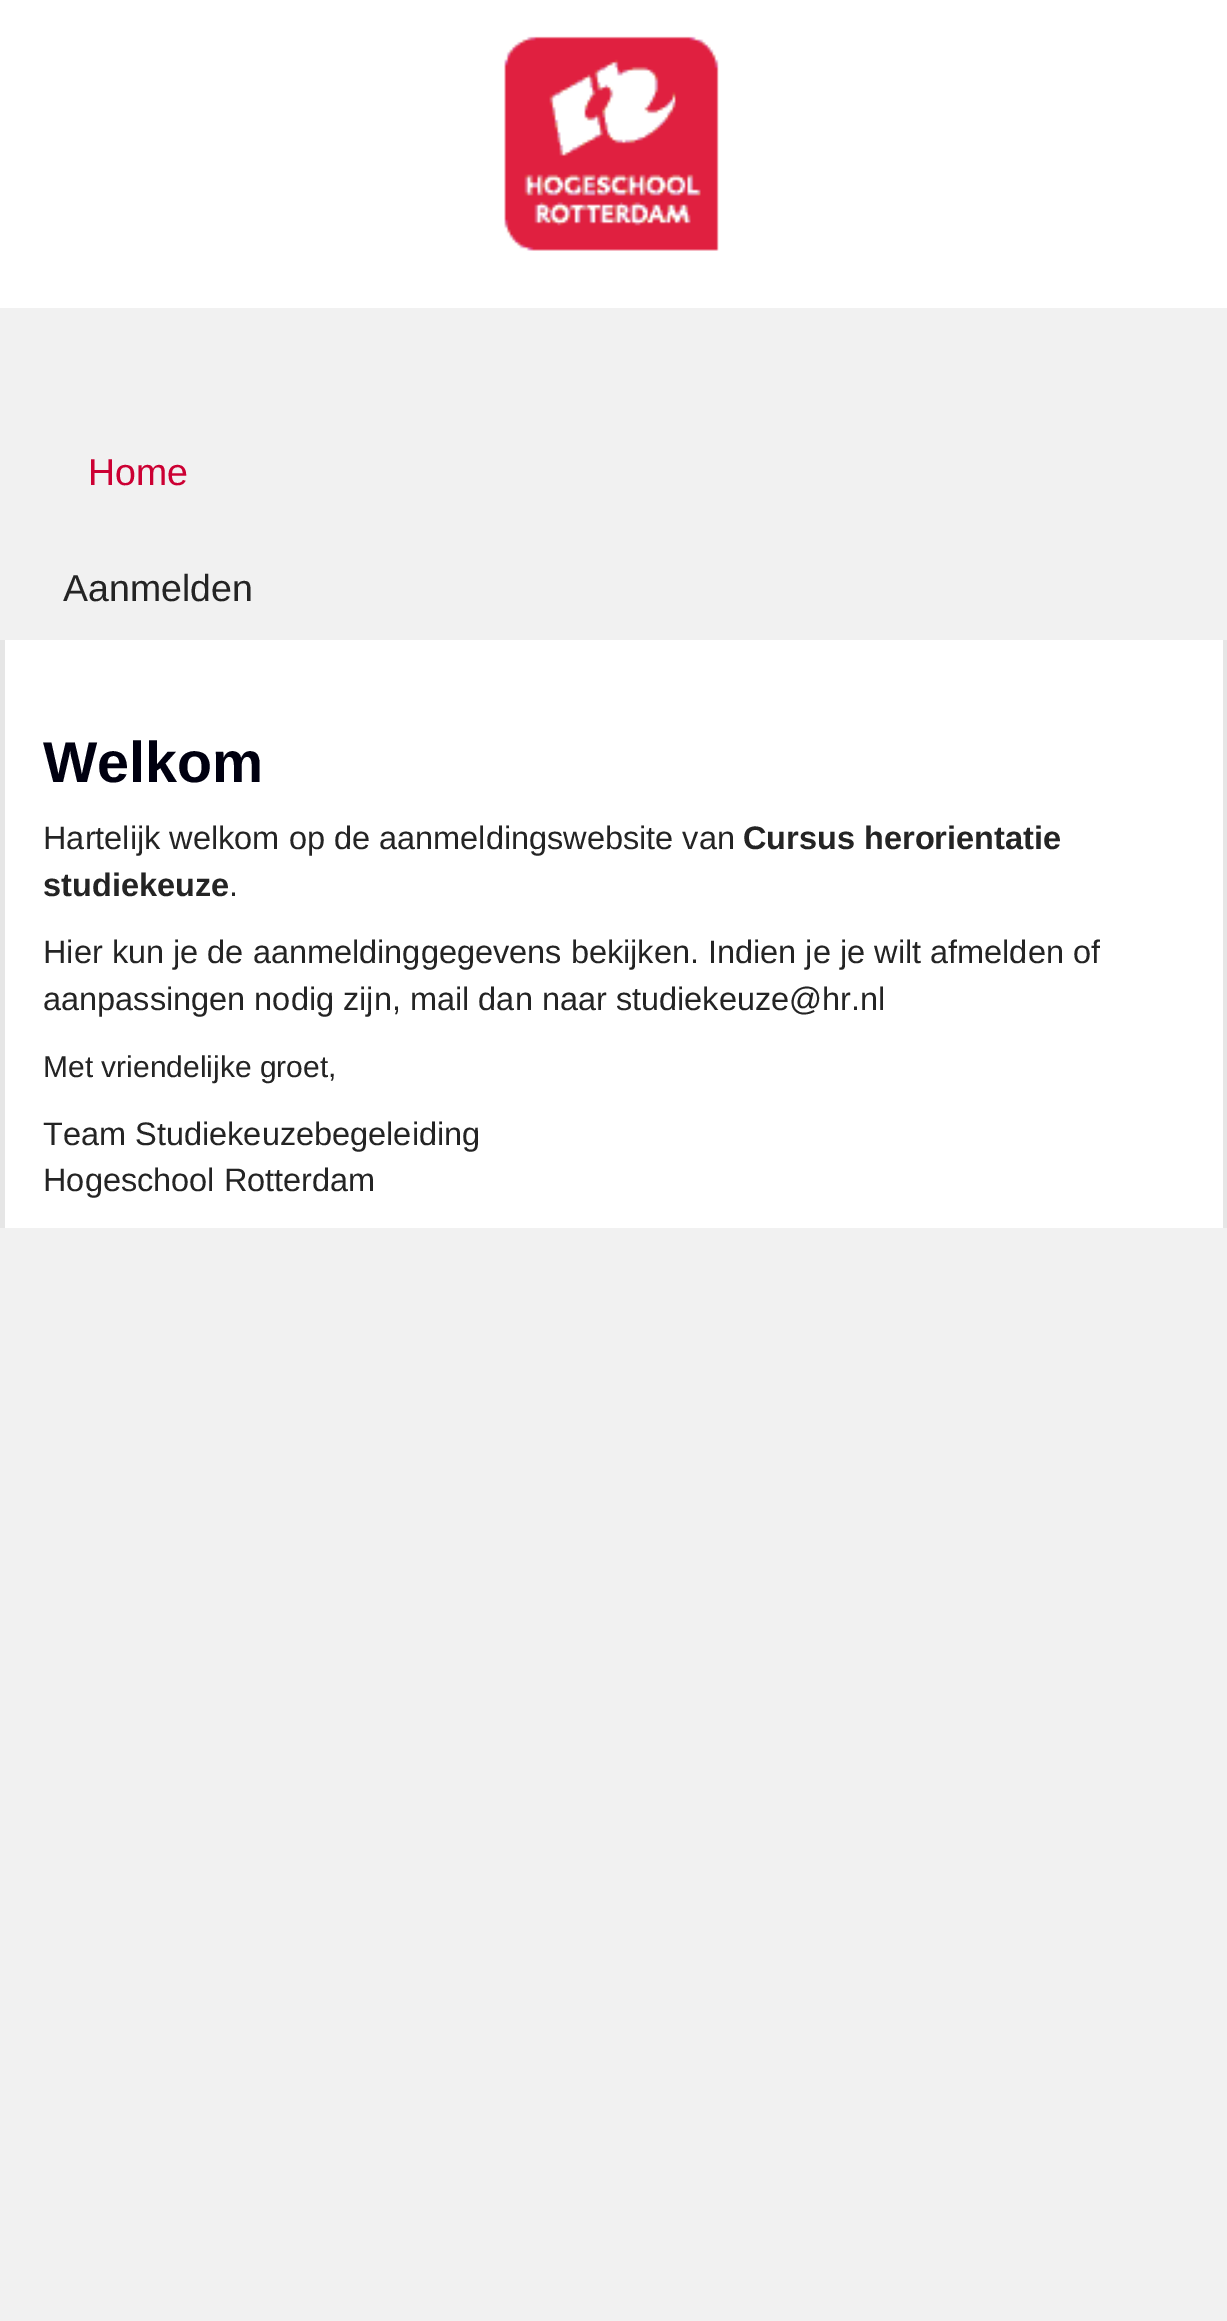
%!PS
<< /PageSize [1227 2321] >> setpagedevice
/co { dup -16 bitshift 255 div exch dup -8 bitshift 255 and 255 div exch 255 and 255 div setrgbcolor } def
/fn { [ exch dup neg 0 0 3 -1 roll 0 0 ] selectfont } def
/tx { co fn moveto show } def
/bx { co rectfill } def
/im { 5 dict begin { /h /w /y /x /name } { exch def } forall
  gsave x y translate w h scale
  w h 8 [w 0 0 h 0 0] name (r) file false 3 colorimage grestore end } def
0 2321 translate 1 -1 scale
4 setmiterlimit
0 0 1227 2321 16#F1F1F1 bx
0 0 1227 308 16#FFFFFF bx
(media/1.raw) 504 36 215 215 im
5 640 1218 588 16#FFFFFF bx
1223 640 4 588 16#E6E6E6 bx
0 640 5 588 16#E6E6E6 bx
(Home) 88 485 /LiberationSans-Regular 37.5 16#CC0033 tx
(Aanmelden) 63 601 /LiberationSans-Regular 37.5 16#242424 tx
(Welkom) 43 782 /LiberationSans-Bold 57.5 16#000010 tx
(Hartelijk welkom op de aanmeldingswebsite van) 43 849 /LiberationSans-Regular 32.5 16#242424 tx
(Cursus herorientatie) 743 849 /LiberationSans-Bold 32.5 16#242424 tx
(studiekeuze) 43 896 /LiberationSans-Bold 32.5 16#242424 tx
(.) 229 896 /LiberationSans-Regular 32.5 16#242424 tx
(Hier kun je de aanmeldinggegevens bekijken. Indien je je wilt afmelden of) 43 963 /LiberationSans-Regular 32.5 16#242424 tx
(aanpassingen nodig zijn, mail dan naar studiekeuze@hr.nl) 43 1010 /LiberationSans-Regular 32.5 16#242424 tx
(Met vriendelijke groet,) 43 1077 /LiberationSans-Regular 30 16#242424 tx
(Team Studiekeuzebegeleiding) 43 1145 /LiberationSans-Regular 32.5 16#242424 tx
(Hogeschool Rotterdam) 43 1191 /LiberationSans-Regular 32.5 16#242424 tx
showpage
